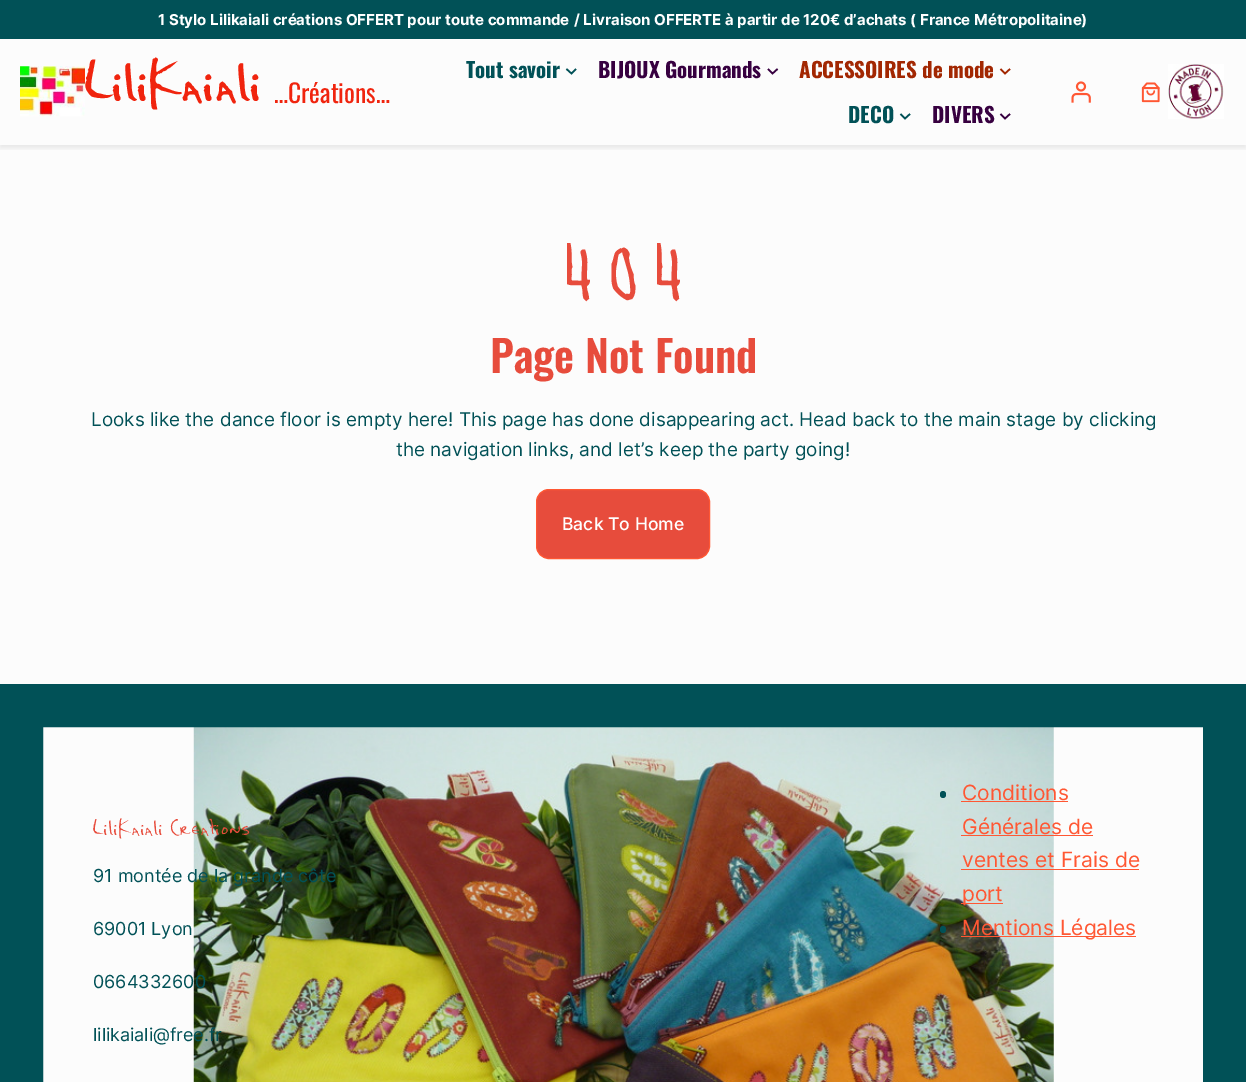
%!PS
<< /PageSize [1246 1082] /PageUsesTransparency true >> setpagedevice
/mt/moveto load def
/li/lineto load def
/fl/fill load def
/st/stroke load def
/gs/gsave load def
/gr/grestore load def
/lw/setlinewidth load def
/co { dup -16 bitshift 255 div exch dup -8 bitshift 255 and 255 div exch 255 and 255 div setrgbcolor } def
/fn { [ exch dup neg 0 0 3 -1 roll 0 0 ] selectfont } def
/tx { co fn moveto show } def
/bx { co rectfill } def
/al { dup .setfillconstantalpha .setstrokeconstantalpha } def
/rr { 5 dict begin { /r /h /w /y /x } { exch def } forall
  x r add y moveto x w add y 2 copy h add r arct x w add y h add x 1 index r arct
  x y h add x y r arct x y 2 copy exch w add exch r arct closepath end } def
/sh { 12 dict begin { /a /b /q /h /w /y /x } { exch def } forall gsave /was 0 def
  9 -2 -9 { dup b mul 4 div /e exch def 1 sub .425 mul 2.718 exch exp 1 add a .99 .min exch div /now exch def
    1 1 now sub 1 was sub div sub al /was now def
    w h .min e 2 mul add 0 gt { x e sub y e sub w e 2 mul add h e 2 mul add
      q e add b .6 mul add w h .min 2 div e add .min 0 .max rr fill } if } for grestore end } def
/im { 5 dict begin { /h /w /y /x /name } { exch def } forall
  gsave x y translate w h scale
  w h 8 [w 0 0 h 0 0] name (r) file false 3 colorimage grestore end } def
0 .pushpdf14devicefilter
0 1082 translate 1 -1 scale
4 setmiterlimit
0 0 1246 1082 16#FCFCFC bx
gs
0 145 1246 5 rectclip
16#000000 co
0 3 1246 145 0 2.5 .08 sh
gr
0 0 1246 39 16#015157 bx
(media/1.raw) 20 66 65 51 im
1.6 lw
566.5 69 mt 571.5 73.5 li 576 69 li st
16#370040 co
768 69 mt 772.5 73.5 li 777.5 69 li st
16#A22702 co
1000.5 69 mt 1005 73.5 li 1010 69 li st
16#015157 co
900.5 114 mt 905 118.5 li 910 114 li st
16#370040 co
1000.5 114 mt 1005 118.5 li 1010 114 li st
(media/2.raw) 1071 81 20 22 im
(media/3.raw) 1141 82 19 21 im
(media/4.raw) 1168 64 56 55 im
16#E74C3C co
536.5 489.5 173 69 12.5 rr gs fl gr
16#FF5733 co
1 lw
st
(media/5.raw) 193 727 861 355 im
16#015157 co
43 lw
21.5 705.5 1203 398 rectstroke
940 791 6 7 3 rr fl
961 801 107 1 16#FF5733 bx
961 835 132 1 16#FF5733 bx
961 869 178 1 16#FF5733 bx
961 903 42 1 16#FF5733 bx
16#015157 co
940 926 6 7 3 rr fl
961 936 175 1 16#FF5733 bx
(1 Stylo Lilikaiali créations OFFERT pour toute commande) 158 25 /Inter-Bold 15 16#FFFFFF tx
(/ Livraison OFFERTE à partir de 120€ d’achats \( France Métropolitaine\)) 574 25 /Inter-Bold 15 16#FFFFFF tx
(LiliKaiali) 85 101 /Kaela-Bold 52.5 16#F0240E tx
(…Créations…) 274 103 /Oswald-Regular 25.5 16#F0240E tx
(Tout savoir) 466 78 /Oswald-Bold 21 16#015157 tx
(BIJOUX Gourmands) 598 78 /Oswald-Bold 21 16#370040 tx
(ACCESSOIRES de mode) 799 78 /Oswald-Bold 21 16#A22702 tx
(DECO) 848 123 /Oswald-Bold 21 16#015157 tx
(DIVERS) 932 123 /Oswald-Bold 21 16#370040 tx
(404) 555 301 /Kaela-Bold 70 16#E74C3C tx
(Page Not Found) 490 373 /Oswald-SemiBold 43.25 16#E74C3C tx
(Looks like the dance floor is empty here! This page has done disappearing act. Head back to the main stage by clicking) 91 426 /Inter-Regular 18.93 16#015157 tx
(the navigation links, and let’s keep the party going!) 396 456 /Inter-Regular 18.93 16#015157 tx
(Back To Home) 562 530 /Inter-Medium 17.5 16#FFFFFF tx
(LiliKaiali Créations) 93 835 /Kaela-Regular 21 16#E74C3C tx
(91 montée de la grande côte) 93 882 /Inter-Regular 18 16#015157 tx
(69001 Lyon) 93 935 /Inter-Regular 18 16#015157 tx
(0664332600) 93 988 /Inter-Regular 18 16#015157 tx
(lilikaiali@free.fr) 93 1041 /Inter-Regular 18 16#015157 tx
(Conditions) 962 800 /Inter-Regular 21 16#FF5733 tx
(Générales de) 962 834 /Inter-Regular 21 16#FF5733 tx
(ventes et Frais de) 962 867 /Inter-Regular 21 16#FF5733 tx
(port) 962 901 /Inter-Regular 21 16#FF5733 tx
(Mentions Légales) 962 935 /Inter-Regular 21 16#FF5733 tx
.poppdf14devicefilter showpage
